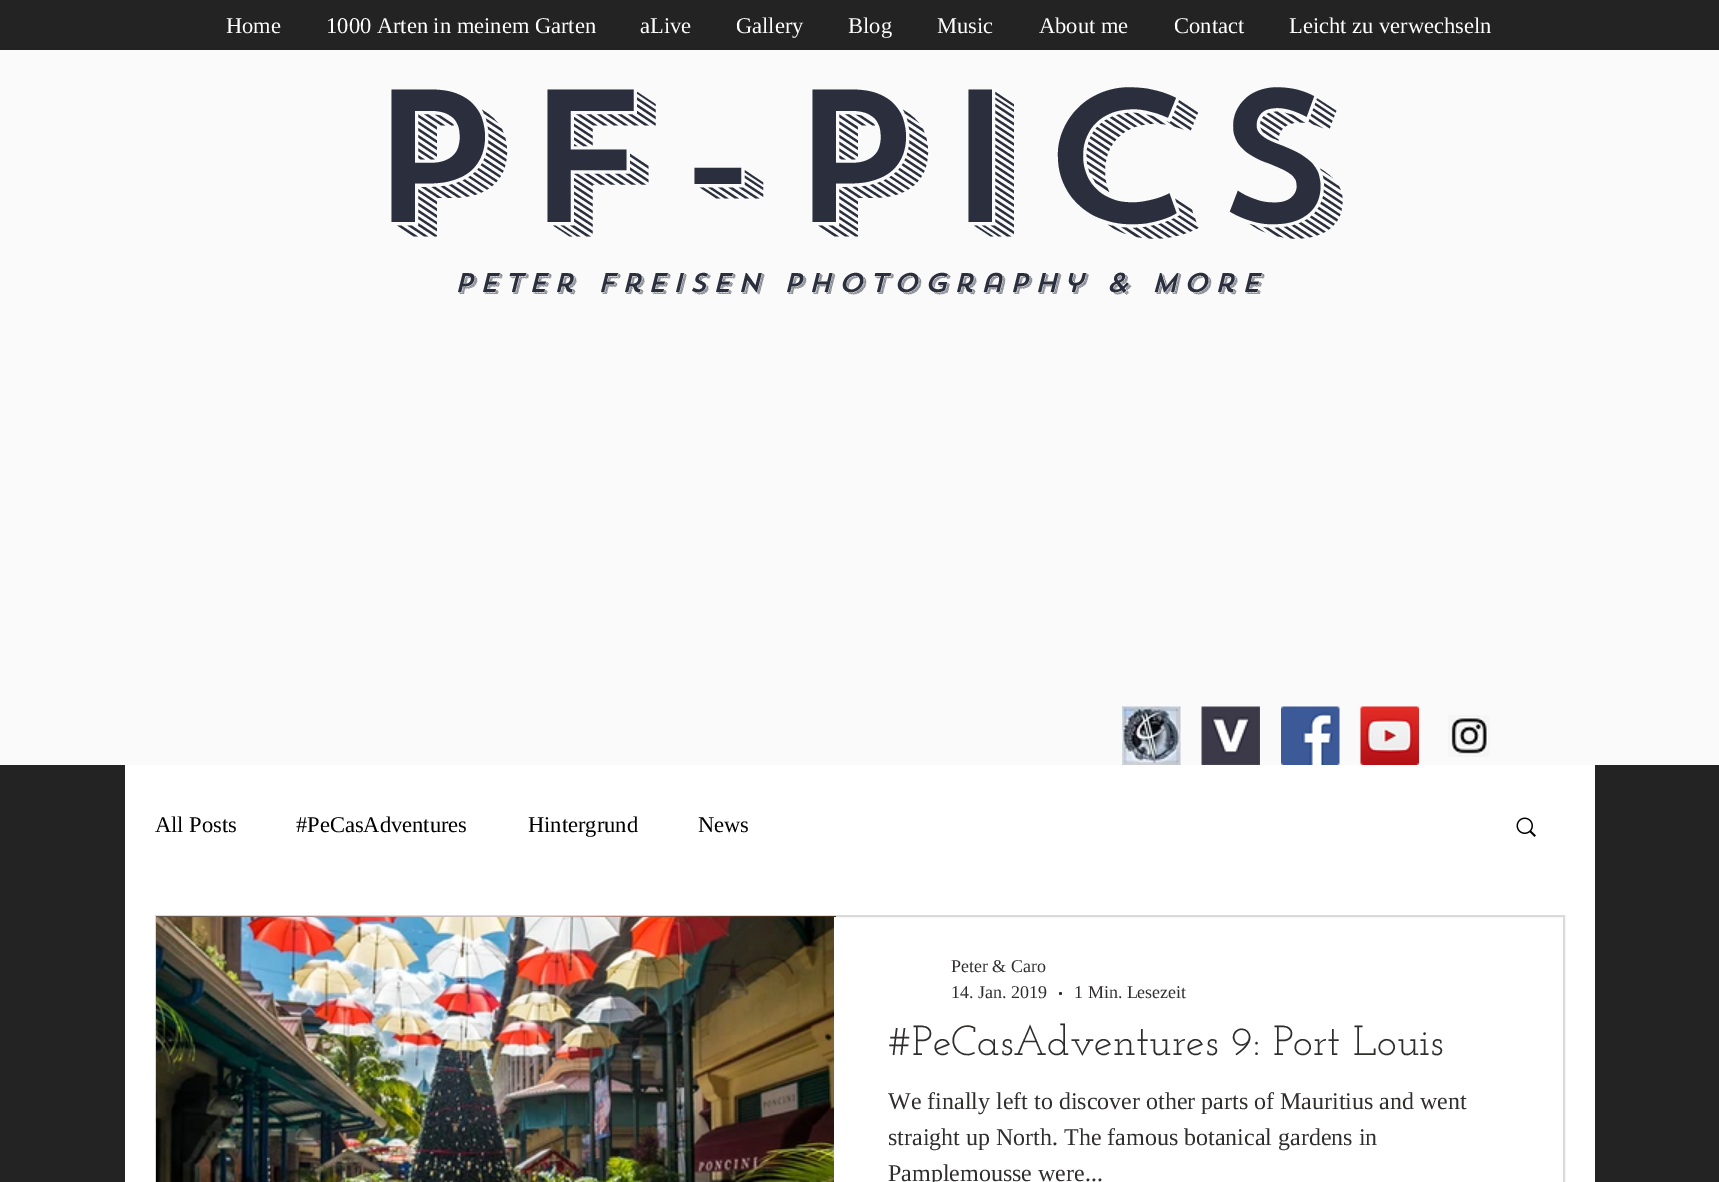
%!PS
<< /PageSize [1719 1182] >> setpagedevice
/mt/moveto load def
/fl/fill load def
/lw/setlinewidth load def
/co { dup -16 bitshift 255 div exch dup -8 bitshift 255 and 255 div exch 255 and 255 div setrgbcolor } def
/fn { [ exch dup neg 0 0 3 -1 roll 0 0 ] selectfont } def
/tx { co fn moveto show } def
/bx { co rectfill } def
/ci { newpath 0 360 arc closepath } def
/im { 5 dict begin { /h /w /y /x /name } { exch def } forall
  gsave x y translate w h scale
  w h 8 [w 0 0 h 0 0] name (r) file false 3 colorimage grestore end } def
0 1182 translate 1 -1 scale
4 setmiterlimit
0 0 1719 1182 16#242323 bx
0 50 1719 715 16#FAFAFA bx
(media/1.raw) 1122 706 59 59 im
(media/2.raw) 1201 706 59 59 im
(media/3.raw) 1281 706 59 59 im
(media/4.raw) 1360 706 59 59 im
(media/5.raw) 1448 715 42 42 im
125 765 1470 417 16#FFFFFF bx
(media/6.raw) 1516 817 20 20 im
16#DADADA co
2 lw
156 916 1408 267 rectstroke
(media/7.raw) 156 916 680 1 im
(media/8.raw) 156 917 678 265 im
16#302D2D co
1060.5 993.5 1.5 ci fl
(Home) 226 33 /LiberationSerif-Regular 22.5 16#FFFFFF tx
(1000 Arten in meinem Garten) 326 33 /LiberationSerif-Regular 22.5 16#FFFFFF tx
(aLive) 640 33 /LiberationSerif-Regular 22.5 16#FFFFFF tx
(Gallery) 736 33 /LiberationSerif-Regular 22.5 16#FFFFFF tx
(Blog) 848 33 /LiberationSerif-Regular 22.5 16#FFFFFF tx
(Music) 937 33 /LiberationSerif-Regular 22.5 16#FFFFFF tx
(About me) 1039 33 /LiberationSerif-Regular 22.5 16#FFFFFF tx
(Contact) 1174 33 /LiberationSerif-Regular 22.5 16#FFFFFF tx
(Leicht zu verwechseln) 1289 33 /LiberationSerif-Regular 22.5 16#FFFFFF tx
/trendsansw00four-Medium 189 fn
16#2A2E3D co
364 222 mt 19 0 (PF-PICS) ashow
/trendsansw00four-MediumItalic 27 fn
454 292 mt 5.4 0 (Peter Freisen Photography & more) ashow
(All Posts) 155 832 /LiberationSerif-Regular 22.5 16#000000 tx
(#PeCasAdventures) 296 832 /LiberationSerif-Regular 22.5 16#000000 tx
(Hintergrund) 528 832 /LiberationSerif-Regular 22.5 16#000000 tx
(News) 698 832 /LiberationSerif-Regular 22.5 16#000000 tx
(Peter & Caro) 951 972 /LiberationSerif-Regular 18 16#302D2D tx
(14. Jan. 2019) 951 998 /LiberationSerif-Regular 18 16#302D2D tx
(1 Min. Lesezeit) 1074 998 /LiberationSerif-Regular 18 16#302D2D tx
(#PeCasAdventures 9: Port Louis) 888 1055 /JosefinSlab-Regular 42 16#302D2D tx
(We finally left to discover other parts of Mauritius and went) 888 1109 /LiberationSerif-Regular 24 16#302D2D tx
(straight up North. The famous botanical gardens in) 888 1145 /LiberationSerif-Regular 24 16#302D2D tx
(Pamplemousse were...) 888 1181 /LiberationSerif-Regular 24 16#302D2D tx
showpage
